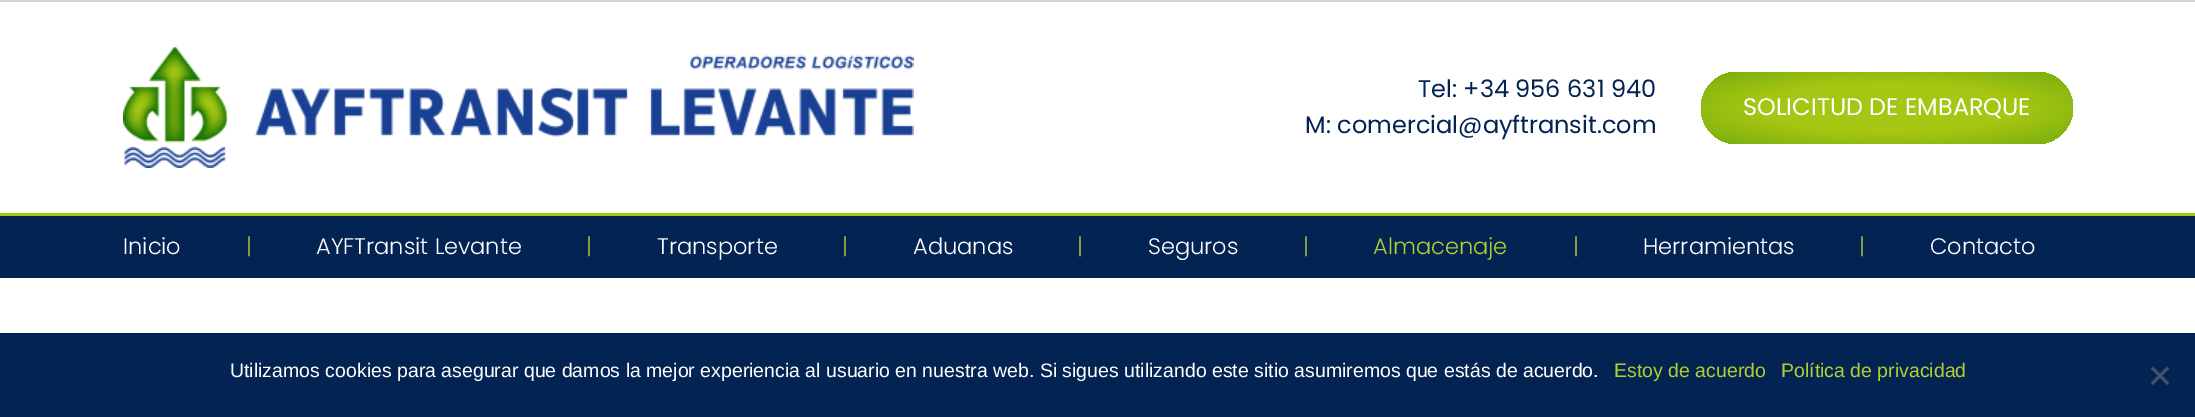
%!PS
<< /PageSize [2195 417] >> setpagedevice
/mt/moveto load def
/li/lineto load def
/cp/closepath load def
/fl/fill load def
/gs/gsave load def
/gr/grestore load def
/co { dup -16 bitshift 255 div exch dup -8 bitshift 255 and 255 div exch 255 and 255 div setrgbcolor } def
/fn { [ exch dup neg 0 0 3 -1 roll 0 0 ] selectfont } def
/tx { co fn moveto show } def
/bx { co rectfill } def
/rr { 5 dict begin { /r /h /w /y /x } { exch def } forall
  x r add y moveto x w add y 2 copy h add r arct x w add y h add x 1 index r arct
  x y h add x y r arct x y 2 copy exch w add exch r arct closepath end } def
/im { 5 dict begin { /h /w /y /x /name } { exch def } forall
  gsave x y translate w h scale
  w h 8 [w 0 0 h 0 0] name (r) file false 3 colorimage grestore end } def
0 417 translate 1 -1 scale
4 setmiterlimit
0 0 2195 417 16#D7D6D6 bx
0 2 2195 211 16#FFFFFF bx
0 213 2195 3 16#A4C612 bx
(media/1.raw) 123 47 791 121 im
gs 1701 72 372 72 36 rr clip newpath 1887 108 translate 263 51 scale
<< /ShadingType 3 /ColorSpace /DeviceRGB /Coords [0 0 0 0 0 1] /Extend [true true] /Function << /FunctionType 3 /Domain [0 1] /Functions [<< /FunctionType 2 /Domain [0 1] /C0 [.647 .776 .071] /C1 [.647 .776 .071] /N 1 >> << /FunctionType 2 /Domain [0 1] /C0 [.647 .776 .071] /C1 [.467 .675 .055] /N 1 >>] /Bounds [.5] /Encode [0 1 0 1] >> >> shfill gr
0 216 2195 62 16#032353 bx
0 278 2195 55 16#FFFFFF bx
0 333 2195 84 16#032353 bx
16#42526A co
2167 366.5 mt 2169 369 li 2153 385 li 2151 382.5 li cp fl
2151 369 mt 2153 366.5 li 2169 382.5 li 2167 385 li cp fl
(Tel: +34 956 631 940) 1418 97 /Poppins-Regular 24 16#032353 tx
(M: comercial@ayftransit.com) 1305 133 /Poppins-Regular 24 16#032353 tx
(SOLICITUD DE EMBARQUE) 1743 115 /Poppins-Regular 24 16#FFFFFF tx
(Inicio) 123 254 /Poppins-Light 22.5 16#FFFFFF tx
(|) 246 254 /Poppins-Light 22.5 16#B0CE32 tx
(AYFTransit Levante) 316 254 /Poppins-Light 22.5 16#FFFFFF tx
(|) 586 254 /Poppins-Light 22.5 16#B0CE32 tx
(Transporte) 657 254 /Poppins-Light 22.5 16#FFFFFF tx
(|) 842 254 /Poppins-Light 22.5 16#B0CE32 tx
(Aduanas) 913 254 /Poppins-Light 22.5 16#FFFFFF tx
(|) 1077 254 /Poppins-Light 22.5 16#B0CE32 tx
(Seguros) 1148 254 /Poppins-Light 22.5 16#FFFFFF tx
(|) 1303 254 /Poppins-Light 22.5 16#B0CE32 tx
(Almacenaje) 1373 254 /Poppins-Light 22.5 16#B0CE32 tx
(|) 1573 254 /Poppins-Light 22.5 16#B0CE32 tx
(Herramientas) 1643 254 /Poppins-Light 22.5 16#FFFFFF tx
(|) 1859 254 /Poppins-Light 22.5 16#B0CE32 tx
(Contacto) 1930 254 /Poppins-Light 22.5 16#FFFFFF tx
(Utilizamos cookies para asegurar que damos la mejor experiencia al usuario en nuestra web. Si sigues utilizando este sitio asumiremos que estás de acuerdo.) 230 377 /LiberationSans-Regular 19.5 16#FFFFFF tx
(Estoy de acuerdo) 1614 377 /LiberationSans-Regular 19.5 16#B0CE32 tx
(Política de privacidad) 1781 377 /LiberationSans-Regular 19.5 16#B0CE32 tx
showpage
